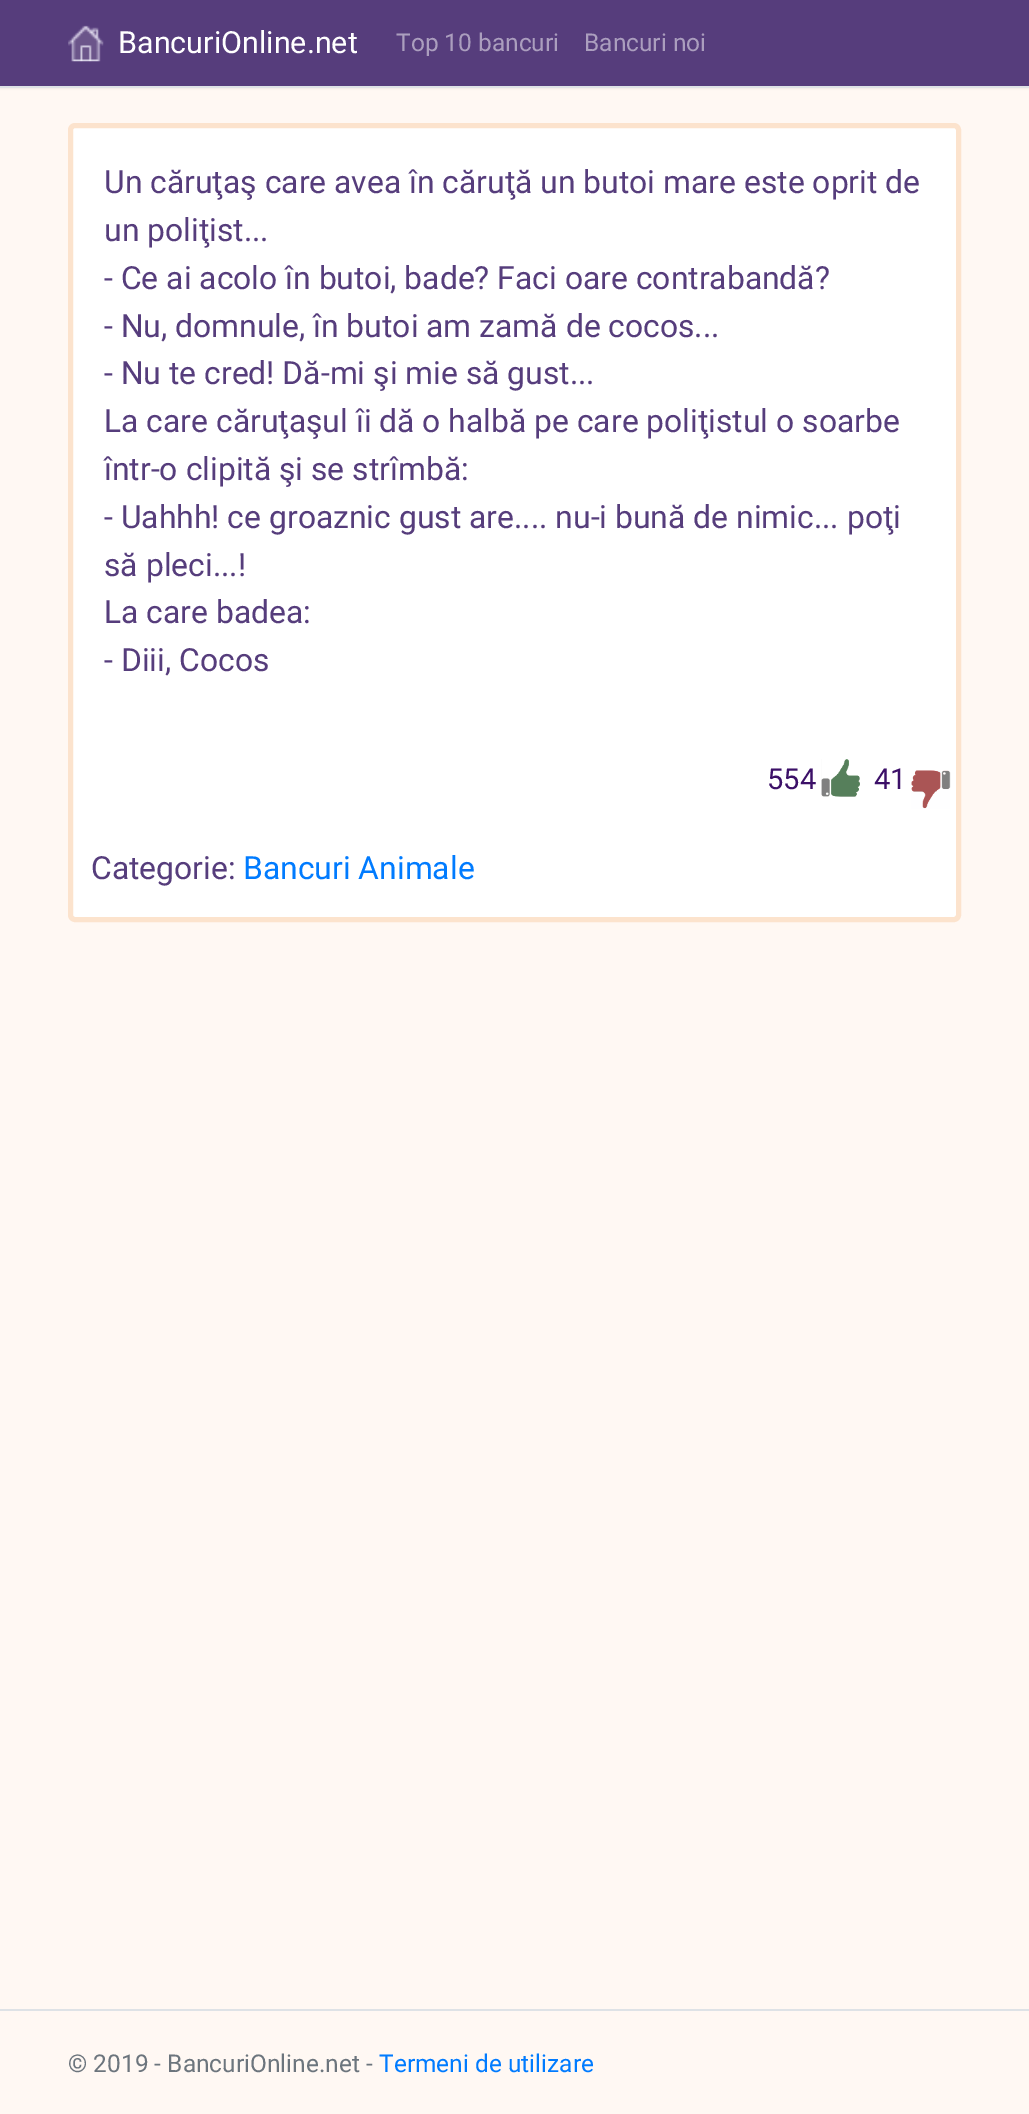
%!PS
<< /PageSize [1029 2114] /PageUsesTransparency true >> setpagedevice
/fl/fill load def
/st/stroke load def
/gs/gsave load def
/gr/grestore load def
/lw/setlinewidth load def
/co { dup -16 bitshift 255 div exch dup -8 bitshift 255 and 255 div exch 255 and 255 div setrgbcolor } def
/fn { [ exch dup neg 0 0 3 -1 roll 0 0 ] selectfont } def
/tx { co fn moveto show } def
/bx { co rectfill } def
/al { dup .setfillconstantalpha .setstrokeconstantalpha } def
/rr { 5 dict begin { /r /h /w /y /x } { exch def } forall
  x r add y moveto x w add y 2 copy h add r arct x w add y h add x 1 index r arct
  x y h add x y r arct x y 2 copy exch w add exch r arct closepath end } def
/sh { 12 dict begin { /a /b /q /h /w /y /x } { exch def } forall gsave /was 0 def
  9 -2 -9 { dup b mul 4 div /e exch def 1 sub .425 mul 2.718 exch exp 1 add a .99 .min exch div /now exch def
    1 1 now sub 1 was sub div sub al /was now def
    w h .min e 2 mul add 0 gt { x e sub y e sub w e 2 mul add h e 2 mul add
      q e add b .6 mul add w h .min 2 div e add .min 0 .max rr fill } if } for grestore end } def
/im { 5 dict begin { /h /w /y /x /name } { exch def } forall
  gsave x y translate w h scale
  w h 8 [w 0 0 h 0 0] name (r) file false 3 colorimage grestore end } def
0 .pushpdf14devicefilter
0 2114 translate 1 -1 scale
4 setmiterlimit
0 0 1029 2114 16#FFF8F3 bx
16#000000 co
0 2 1029 87 0 1 .05 sh
0 0 1029 86 16#563D7C bx
0 86 1029 2 16#DEE2E6 bx
(media/1.raw) 68 25 36 37 im
16#FFFFFF co
70.5 125.5 888 794 4.5 rr gs fl gr
16#FCE3CD co
5 lw
st
(media/2.raw) 821 759 39 38 im
(media/3.raw) 911 770 40 39 im
0 2009 1029 2 16#DEE2E6 bx
(BancuriOnline.net) 118 53 /Roboto-Regular 30.5 16#FFFFFF tx
(Top 10 bancuri) 396 51 /Roboto-Regular 24.5 16#AB9EBE tx
(Bancuri noi) 584 51 /Roboto-Regular 24.5 16#AB9EBE tx
(Un căruţaş care avea în căruţă un butoi mare este oprit de) 104 193 /Roboto-Regular 31.85 16#563D7C tx
(un poliţist...) 104 241 /Roboto-Regular 31.85 16#563D7C tx
(- Ce ai acolo în butoi, bade? Faci oare contrabandă?) 104 289 /Roboto-Regular 31.85 16#563D7C tx
(- Nu, domnule, în butoi am zamă de cocos...) 104 337 /Roboto-Regular 31.85 16#563D7C tx
(- Nu te cred! Dă-mi şi mie să gust...) 104 384 /Roboto-Regular 31.85 16#563D7C tx
(La care căruţaşul îi dă o halbă pe care poliţistul o soarbe) 104 432 /Roboto-Regular 31.85 16#563D7C tx
(într-o clipită şi se strîmbă:) 104 480 /Roboto-Regular 31.85 16#563D7C tx
(- Uahhh! ce groaznic gust are.... nu-i bună de nimic... poţi) 104 528 /Roboto-Regular 31.85 16#563D7C tx
(să pleci...!) 104 576 /Roboto-Regular 31.85 16#563D7C tx
(La care badea:) 104 623 /Roboto-Regular 31.85 16#563D7C tx
(- Diii, Cocos) 104 671 /Roboto-Regular 31.85 16#563D7C tx
(554) 767 789 /Roboto-Regular 29 16#3C1068 tx
(41) 874 789 /Roboto-Regular 29 16#3C1068 tx
(Categorie:) 91 879 /Roboto-Regular 31.85 16#563D7C tx
(Bancuri Animale) 243 879 /Roboto-Regular 31.85 16#007BFF tx
(© 2019 - BancuriOnline.net -) 68 2072 /Roboto-Regular 24.5 16#6C757D tx
(Termeni de utilizare) 379 2072 /Roboto-Regular 24.5 16#007BFF tx
.poppdf14devicefilter showpage
